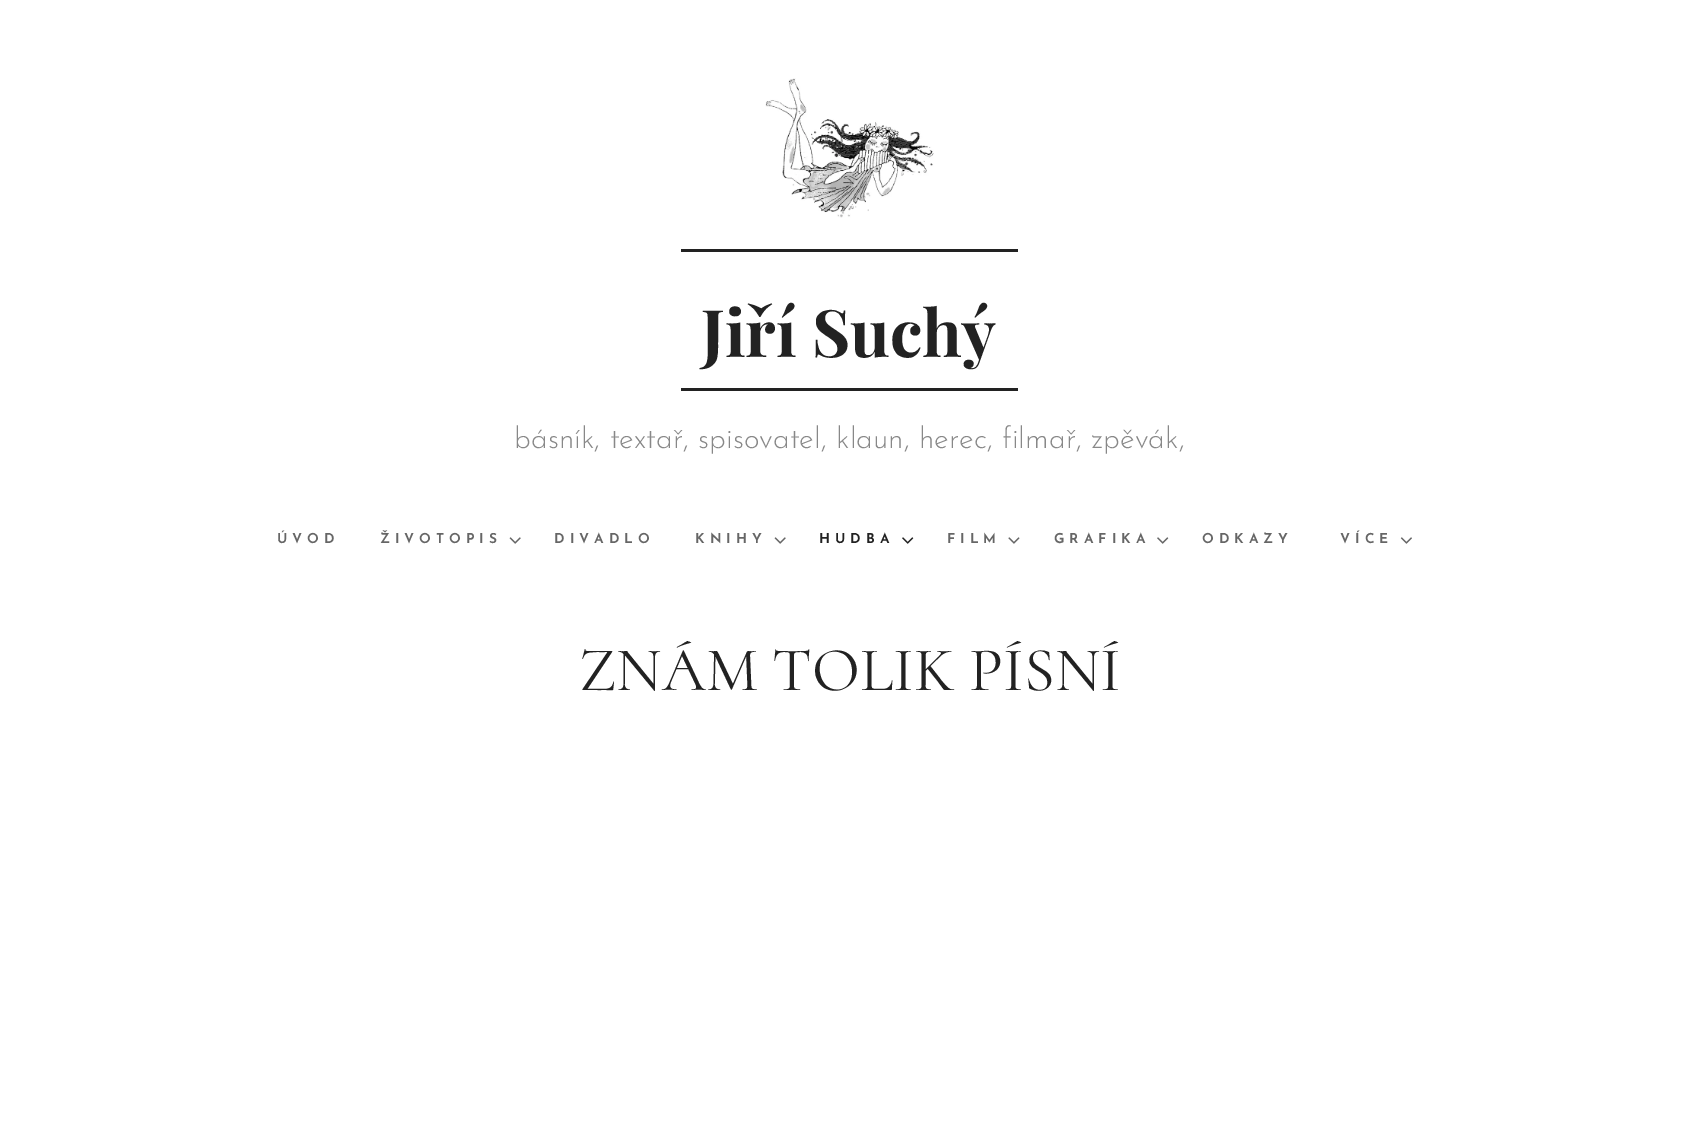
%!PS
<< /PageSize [1698 1129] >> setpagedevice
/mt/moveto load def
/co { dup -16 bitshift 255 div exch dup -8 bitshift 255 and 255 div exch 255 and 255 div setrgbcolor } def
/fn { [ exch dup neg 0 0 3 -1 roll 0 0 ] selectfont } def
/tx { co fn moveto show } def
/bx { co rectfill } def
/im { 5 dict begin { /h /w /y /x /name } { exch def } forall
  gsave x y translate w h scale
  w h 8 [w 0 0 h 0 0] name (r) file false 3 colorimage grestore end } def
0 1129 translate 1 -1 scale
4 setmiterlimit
0 0 1698 1129 16#FFFFFF bx
(media/1.raw) 765 78 169 140 im
681 249 337 3 16#222222 bx
681 388 337 3 16#222222 bx
(media/2.raw) 509 537 12 7 im
(media/2.raw) 774 537 12 7 im
(media/3.raw) 902 537 12 7 im
(media/4.raw) 1008 537 12 7 im
(media/5.raw) 1157 537 12 7 im
(media/6.raw) 1400 537 12 7 im
(Jiří Suchý) 701 357 /PlayfairDisplay-Bold 65.5 16#222222 tx
(básník, textař, spisovatel, klaun, herec, filmař, zpěvák,) 514 448 /JosefinSans-Light 30 16#888888 tx
/JosefinSans-SemiBold 13.75 fn
16#666666 co
277 543 mt 5 0 (ÚVOD) ashow
380 543 mt 5 0 (ŽIVOTOPIS) ashow
554 543 mt 5 0 (DIVADLO) ashow
695 543 mt 5 0 (KNIHY) ashow
16#222222 co
819 543 mt 5 0 (HUDBA) ashow
16#666666 co
947 543 mt 5 0 (FILM) ashow
1054 543 mt 5 0 (GRAFIKA) ashow
1202 543 mt 5 0 (ODKAZY) ashow
1340 543 mt 5 0 (VÍCE) ashow
(ZNÁM TOLIK PÍSNÍ) 579 690 /Cormorant-Regular 62.5 16#222222 tx
showpage
